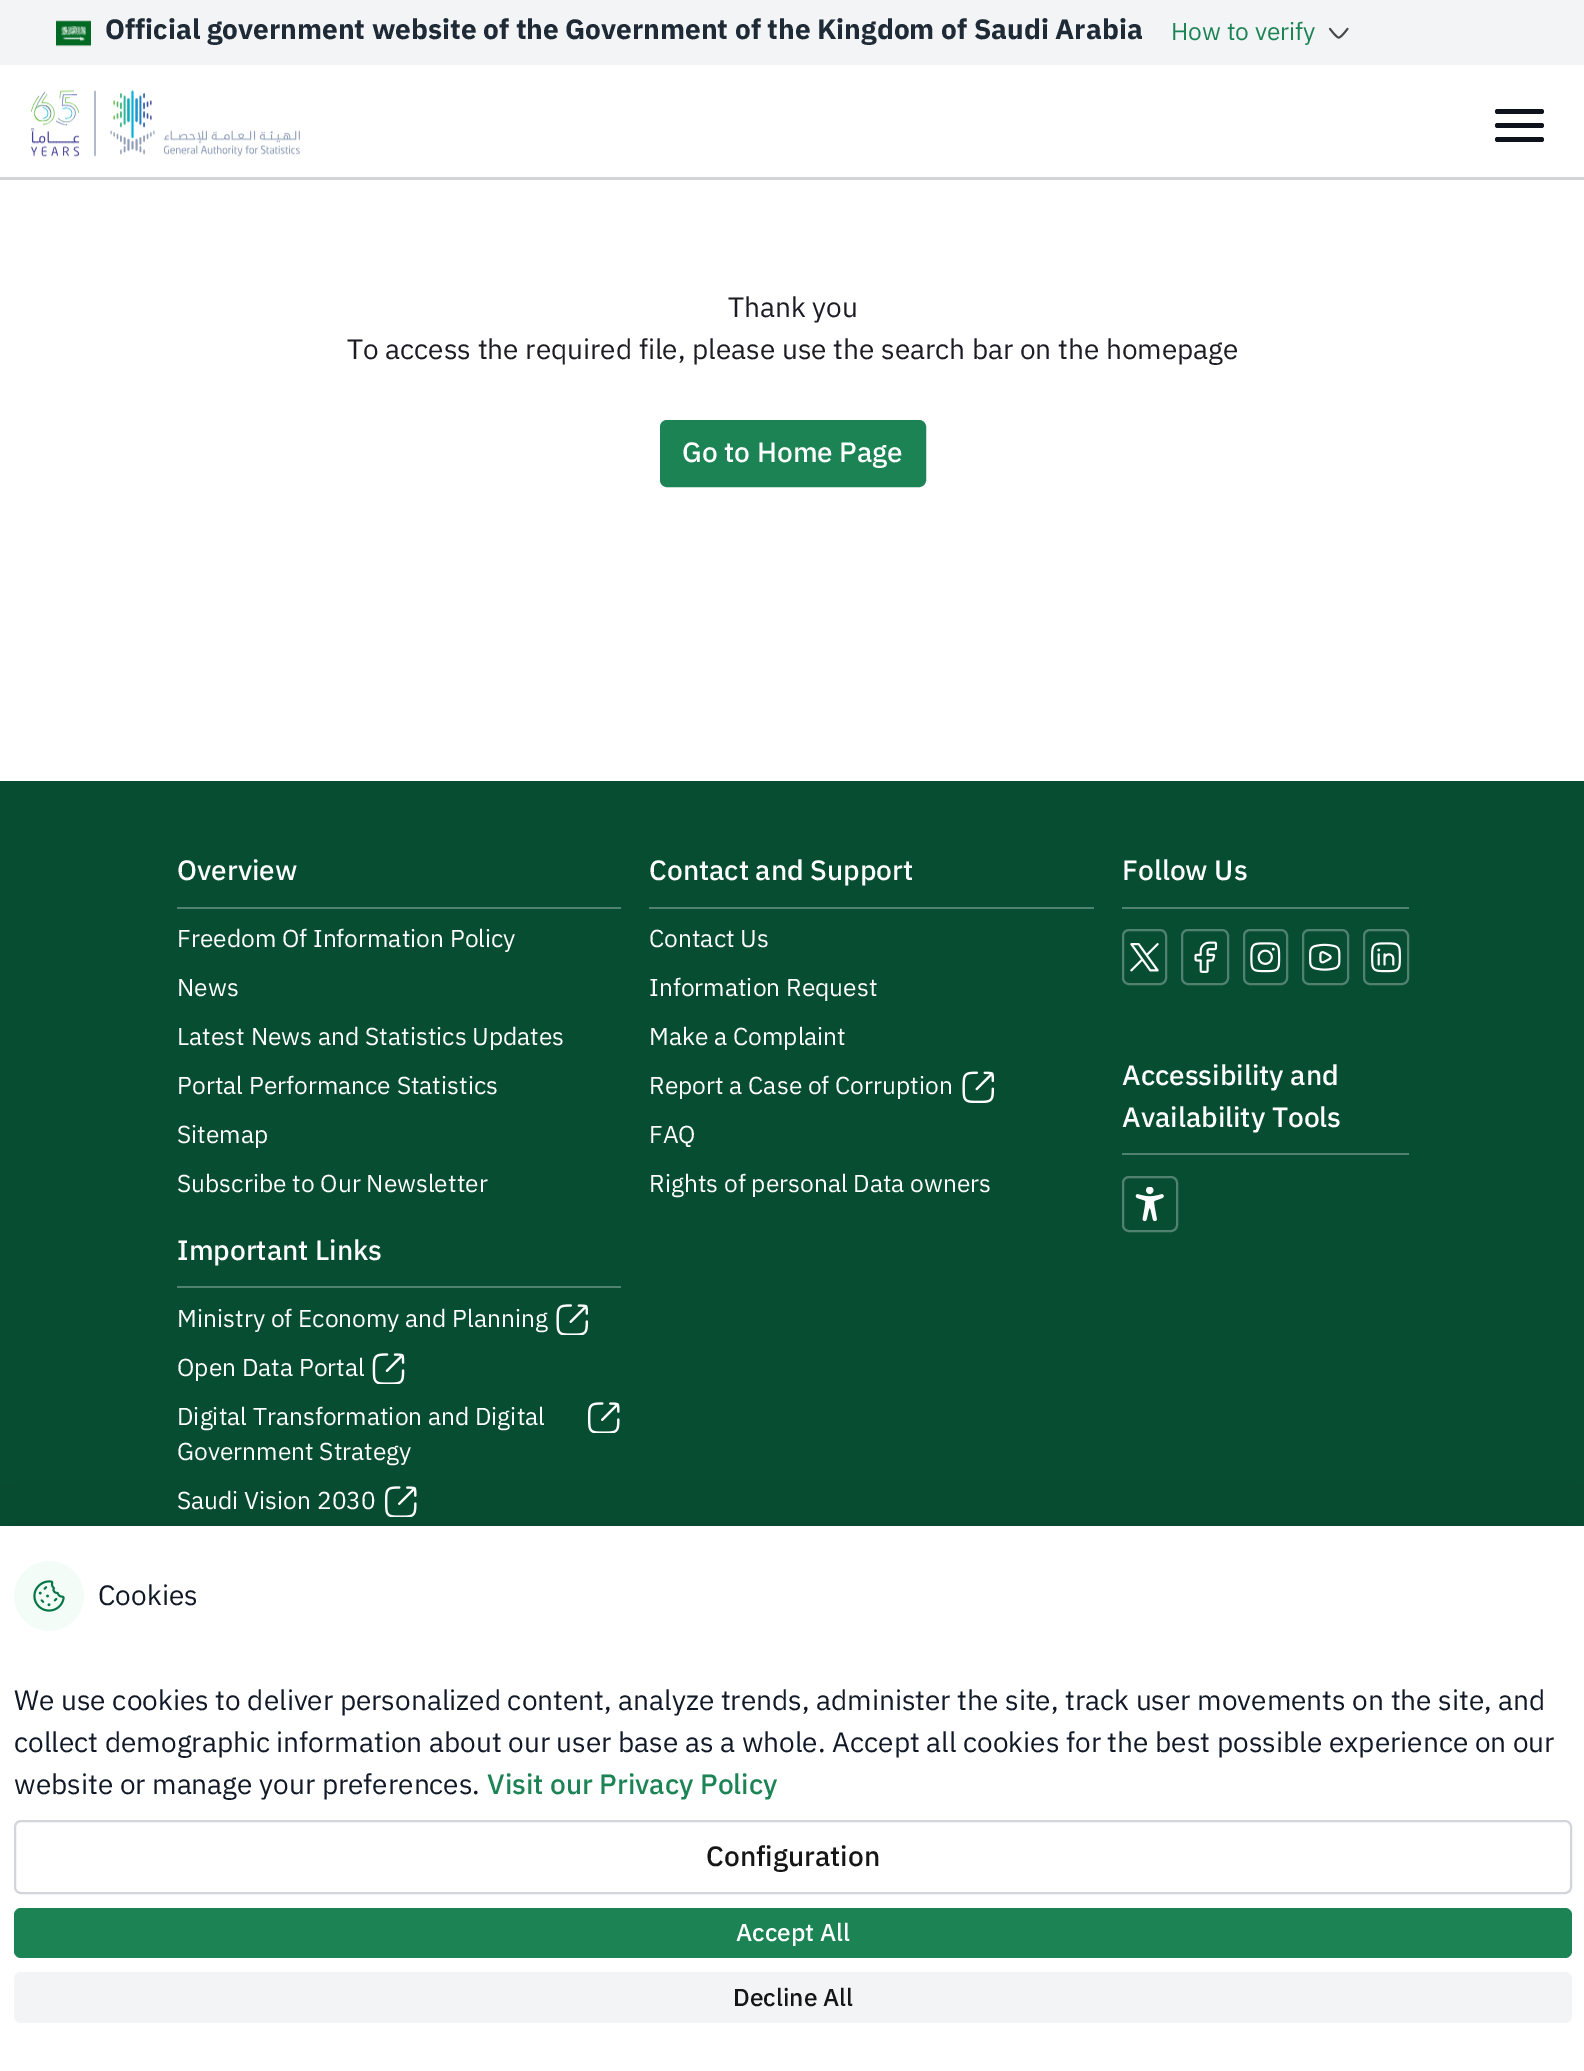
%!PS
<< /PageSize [1584 2071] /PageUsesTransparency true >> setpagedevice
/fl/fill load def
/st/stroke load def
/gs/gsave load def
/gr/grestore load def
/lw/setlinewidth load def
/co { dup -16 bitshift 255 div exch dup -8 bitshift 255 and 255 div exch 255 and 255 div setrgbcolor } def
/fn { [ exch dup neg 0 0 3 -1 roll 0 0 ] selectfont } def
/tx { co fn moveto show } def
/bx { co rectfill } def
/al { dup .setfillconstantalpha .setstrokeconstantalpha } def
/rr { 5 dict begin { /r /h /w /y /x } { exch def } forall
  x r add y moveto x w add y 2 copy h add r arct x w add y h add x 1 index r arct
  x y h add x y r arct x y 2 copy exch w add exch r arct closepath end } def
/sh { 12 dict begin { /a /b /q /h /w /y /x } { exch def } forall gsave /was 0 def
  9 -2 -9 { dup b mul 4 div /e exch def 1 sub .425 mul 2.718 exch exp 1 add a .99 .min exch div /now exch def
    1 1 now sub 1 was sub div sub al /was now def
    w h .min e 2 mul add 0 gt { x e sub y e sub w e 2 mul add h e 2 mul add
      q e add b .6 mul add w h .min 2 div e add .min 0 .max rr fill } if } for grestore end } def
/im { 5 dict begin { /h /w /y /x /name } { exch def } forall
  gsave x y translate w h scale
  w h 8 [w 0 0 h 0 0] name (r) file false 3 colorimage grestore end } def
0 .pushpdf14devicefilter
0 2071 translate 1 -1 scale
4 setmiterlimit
0 0 1584 2071 16#FFFFFF bx
0 0 1584 65 16#F3F4F6 bx
(media/1.raw) 56 20 35 27 im
(media/2.raw) 1328 27 21 12 im
0 177 1584 3 16#D2D6DB bx
(media/3.raw) 31 90 269 67 im
16#0D121C co
1495 123 49 5 2.5 rr fl
1495 109 49 5 2.5 rr fl
1495 137 49 5 2.5 rr fl
16#1B8354 co
661 421 264 65 6 rr gs fl gr
2 lw
st
0 781 1584 745 16#074D31 bx
177 907 444 2 16#51826F bx
649 907 445 2 16#51826F bx
(media/4.raw) 962 1071 32 32 im
177 1286 444 2 16#51826F bx
(media/5.raw) 556 1304 32 31 im
(media/6.raw) 372 1353 33 31 im
(media/7.raw) 587 1402 33 31 im
(media/7.raw) 384 1486 33 31 im
1122 907 287 2 16#51826F bx
1123 930 43 54 6 rr st
(media/8.raw) 1130 943 29 29 im
1182 930 46 54 6 rr st
(media/9.raw) 1194 941 24 32 im
1244 930 43 54 6 rr st
(media/10.raw) 1250 942 31 31 im
1303 930 45 54 6 rr st
(media/11.raw) 1309 943 32 28 im
1364 930 44 54 6 rr st
(media/12.raw) 1371 942 30 31 im
1122 1153 287 2 16#51826F bx
1123 1177 54 54 6 rr st
(media/13.raw) 1135 1187 29 35 im
16#000000 co
0 1554 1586 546 0 42 .18 sh
0 1526 1584 545 16#FFFFFF bx
(media/14.raw) 14 1561 70 70 im
16#D2D6DB co
15 1821 1556 72 6 rr st
16#1B8354 co
14 1908 1558 50 7 rr fl
16#F3F4F6 co
14 1972 1558 51 7 rr fl
(Official government website of the Government of the Kingdom of Saudi Arabia) 105 39 /IBMPlexSansArabic-Bold 28 16#1F2A37 tx
(How to verify) 1171 40 /IBMPlexSansArabic-Regular 24.5 16#1B8354 tx
(Thank you) 728 317 /IBMPlexSansArabic-Regular 28 16#1C1C24 tx
(To access the required file, please use the search bar on the homepage) 347 359 /IBMPlexSansArabic-Regular 28 16#1C1C24 tx
(Go to Home Page) 682 462 /IBMPlexSansArabic-Medium 28 16#FFFFFF tx
(Overview) 177 880 /IBMPlexSansArabic-Medium 28 16#FFFFFF tx
(Freedom Of Information Policy) 177 947 /IBMPlexSansArabic-Regular 24.5 16#FFFFFF tx
(News) 177 996 /IBMPlexSansArabic-Regular 24.5 16#FFFFFF tx
(Latest News and Statistics Updates) 177 1045 /IBMPlexSansArabic-Regular 24.5 16#FFFFFF tx
(Portal Performance Statistics) 177 1094 /IBMPlexSansArabic-Regular 24.5 16#FFFFFF tx
(Sitemap) 177 1143 /IBMPlexSansArabic-Regular 24.5 16#FFFFFF tx
(Subscribe to Our Newsletter) 177 1192 /IBMPlexSansArabic-Regular 24.5 16#FFFFFF tx
(Contact and Support) 649 880 /IBMPlexSansArabic-Medium 28 16#FFFFFF tx
(Contact Us) 649 947 /IBMPlexSansArabic-Regular 24.5 16#FFFFFF tx
(Information Request) 649 996 /IBMPlexSansArabic-Regular 24.5 16#FFFFFF tx
(Make a Complaint) 649 1045 /IBMPlexSansArabic-Regular 24.5 16#FFFFFF tx
(Report a Case of Corruption) 649 1094 /IBMPlexSansArabic-Regular 24.5 16#FFFFFF tx
(FAQ) 649 1143 /IBMPlexSansArabic-Regular 24.5 16#FFFFFF tx
(Rights of personal Data owners) 649 1192 /IBMPlexSansArabic-Regular 24.5 16#FFFFFF tx
(Important Links) 177 1260 /IBMPlexSansArabic-Medium 28 16#FFFFFF tx
(Ministry of Economy and Planning) 177 1327 /IBMPlexSansArabic-Regular 24.5 16#FFFFFF tx
(Open Data Portal) 177 1376 /IBMPlexSansArabic-Regular 24.5 16#FFFFFF tx
(Digital Transformation and Digital) 177 1425 /IBMPlexSansArabic-Regular 24.5 16#FFFFFF tx
(Government Strategy) 177 1460 /IBMPlexSansArabic-Regular 24.5 16#FFFFFF tx
(Saudi Vision 2030) 177 1509 /IBMPlexSansArabic-Regular 24.5 16#FFFFFF tx
(Follow Us) 1122 880 /IBMPlexSansArabic-Medium 28 16#FFFFFF tx
(Accessibility and) 1122 1085 /IBMPlexSansArabic-Medium 28 16#FFFFFF tx
(Availability Tools) 1122 1127 /IBMPlexSansArabic-Medium 28 16#FFFFFF tx
(Cookies) 98 1605 /IBMPlexSansArabic-Regular 28 16#111927 tx
(We use cookies to deliver personalized content, analyze trends, administer the site, track user movements on the site, and) 14 1710 /IBMPlexSansArabic-Regular 28 16#111927 tx
(collect demographic information about our user base as a whole. Accept all cookies for the best possible experience on our) 14 1752 /IBMPlexSansArabic-Regular 28 16#111927 tx
(website or manage your preferences.) 14 1794 /IBMPlexSansArabic-Regular 28 16#111927 tx
(Visit our Privacy Policy) 487 1794 /IBMPlexSansArabic-Medium 28 16#1B8354 tx
(Configuration) 706 1866 /IBMPlexSansArabic-Medium 28 16#161616 tx
(Accept All) 736 1941 /IBMPlexSansArabic-Medium 24.5 16#FFFFFF tx
(Decline All) 733 2006 /IBMPlexSansArabic-Medium 24.5 16#161616 tx
.poppdf14devicefilter showpage
